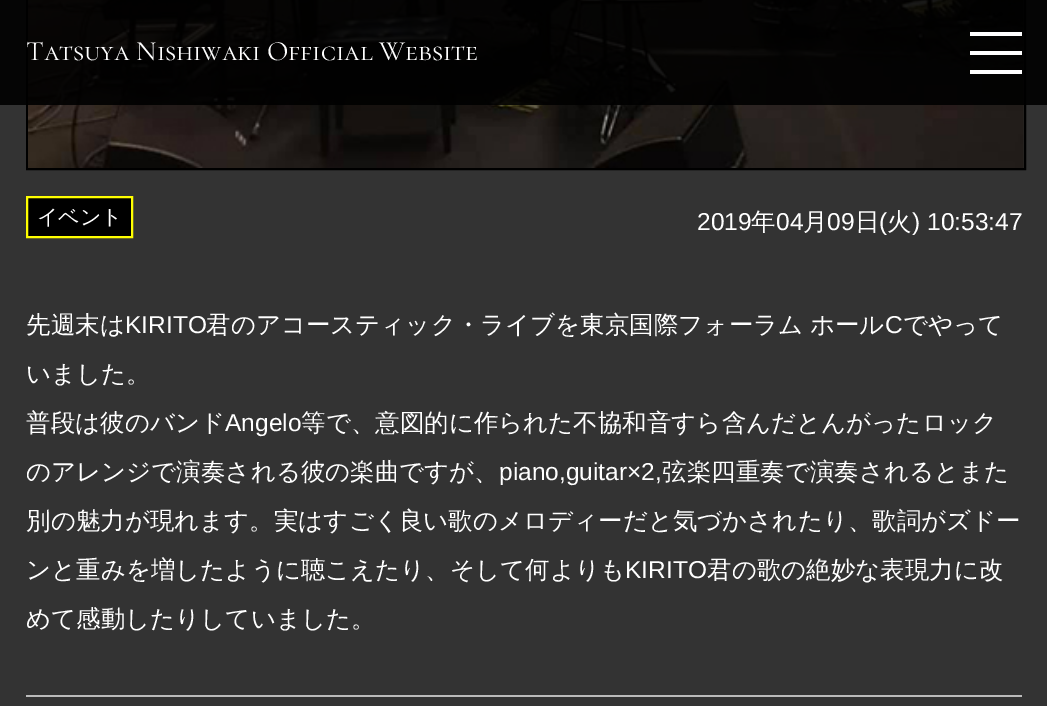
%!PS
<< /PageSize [1047 706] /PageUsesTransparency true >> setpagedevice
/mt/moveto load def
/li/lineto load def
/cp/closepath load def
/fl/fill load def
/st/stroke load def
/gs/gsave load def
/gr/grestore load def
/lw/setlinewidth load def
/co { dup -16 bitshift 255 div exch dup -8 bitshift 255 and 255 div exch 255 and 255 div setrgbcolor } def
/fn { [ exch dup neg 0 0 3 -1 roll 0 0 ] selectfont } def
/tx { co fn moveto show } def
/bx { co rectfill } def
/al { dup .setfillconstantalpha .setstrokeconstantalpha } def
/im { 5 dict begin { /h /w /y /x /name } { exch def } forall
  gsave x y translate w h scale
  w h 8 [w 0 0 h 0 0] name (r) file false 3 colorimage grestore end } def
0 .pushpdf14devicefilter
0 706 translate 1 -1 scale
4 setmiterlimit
0 0 1047 706 16#333333 bx
16#000000 co
2 lw
27 -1 998 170 rectstroke
(media/1.raw) 28 0 996 168 im
0.9 al
0 0 1047 105 16#000000 bx
1 al
970 51 52 4 16#FFFFFF bx
970 32 52 4 16#FFFFFF bx
970 70 52 4 16#FFFFFF bx
16#000000 co
27 197 mt 132 197 li 132 237 li 27 237 li cp gs fl gr
16#FFFF00 co
st
26 695 996 2 16#BBBBBB bx
(Tatsuya Nishiwaki Official Website) 26 60 /CormorantSC-Regular 28 16#FFFFFF tx
(イベント) 37 224 /WenQuanYiZenHei-Medium 21 16#FFFFFF tx
(2019) 697 230 /LiberationSans-Regular 24.5 16#FFFFFF tx
(年) 751 230 /WenQuanYiZenHei-Medium 24.5 16#FFFFFF tx
(04) 776 230 /LiberationSans-Regular 24.5 16#FFFFFF tx
(月) 803 230 /WenQuanYiZenHei-Medium 24.5 16#FFFFFF tx
(09) 827 230 /LiberationSans-Regular 24.5 16#FFFFFF tx
(日) 855 230 /WenQuanYiZenHei-Medium 24.5 16#FFFFFF tx
(\() 879 230 /LiberationSans-Regular 24.5 16#FFFFFF tx
(火) 887 230 /WenQuanYiZenHei-Medium 24.5 16#FFFFFF tx
(\) 10:53:47) 912 230 /LiberationSans-Regular 24.5 16#FFFFFF tx
(先週末は) 26 333 /WenQuanYiZenHei-Medium 24.5 16#FFFFFF tx
(KIRITO) 125 333 /LiberationSans-Regular 24.5 16#FFFFFF tx
/WenQuanYiZenHei-Medium 24.5 fn
206 333 mt -1 0 32 (君のアコースティック・ライブを東京国際フォーラム ホール) widthshow
(C) 885 333 /LiberationSans-Regular 24.5 16#FFFFFF tx
(でやって) 903 333 /WenQuanYiZenHei-Medium 24.5 16#FFFFFF tx
(いました。) 26 382 /WenQuanYiZenHei-Medium 24.5 16#FFFFFF tx
(普段は彼のバンド) 26 431 /WenQuanYiZenHei-Medium 24.5 16#FFFFFF tx
(Angelo) 225 431 /LiberationSans-Regular 24.5 16#FFFFFF tx
(等で、意図的に作られた不協和音すら含んだとんがったロック) 301 431 /WenQuanYiZenHei-Medium 24.5 16#FFFFFF tx
(のアレンジで演奏される彼の楽曲ですが、) 26 480 /WenQuanYiZenHei-Medium 24.5 16#FFFFFF tx
(piano,guitar×2,) 499 480 /LiberationSans-Regular 24.5 16#FFFFFF tx
(弦楽四重奏で演奏されるとまた) 662 480 /WenQuanYiZenHei-Medium 24.5 16#FFFFFF tx
(別の魅力が現れます。実はすごく良い歌のメロディーだと気づかされたり、歌詞がズドー) 26 529 /WenQuanYiZenHei-Medium 24.5 16#FFFFFF tx
(ンと重みを増したように聴こえたり、そして何よりも) 26 578 /WenQuanYiZenHei-Medium 24.5 16#FFFFFF tx
(KIRITO) 625 578 /LiberationSans-Regular 24.5 16#FFFFFF tx
(君の歌の絶妙な表現力に改) 707 578 /WenQuanYiZenHei-Medium 24.5 16#FFFFFF tx
(めて感動したりしていました。) 26 627 /WenQuanYiZenHei-Medium 24.5 16#FFFFFF tx
.poppdf14devicefilter showpage
